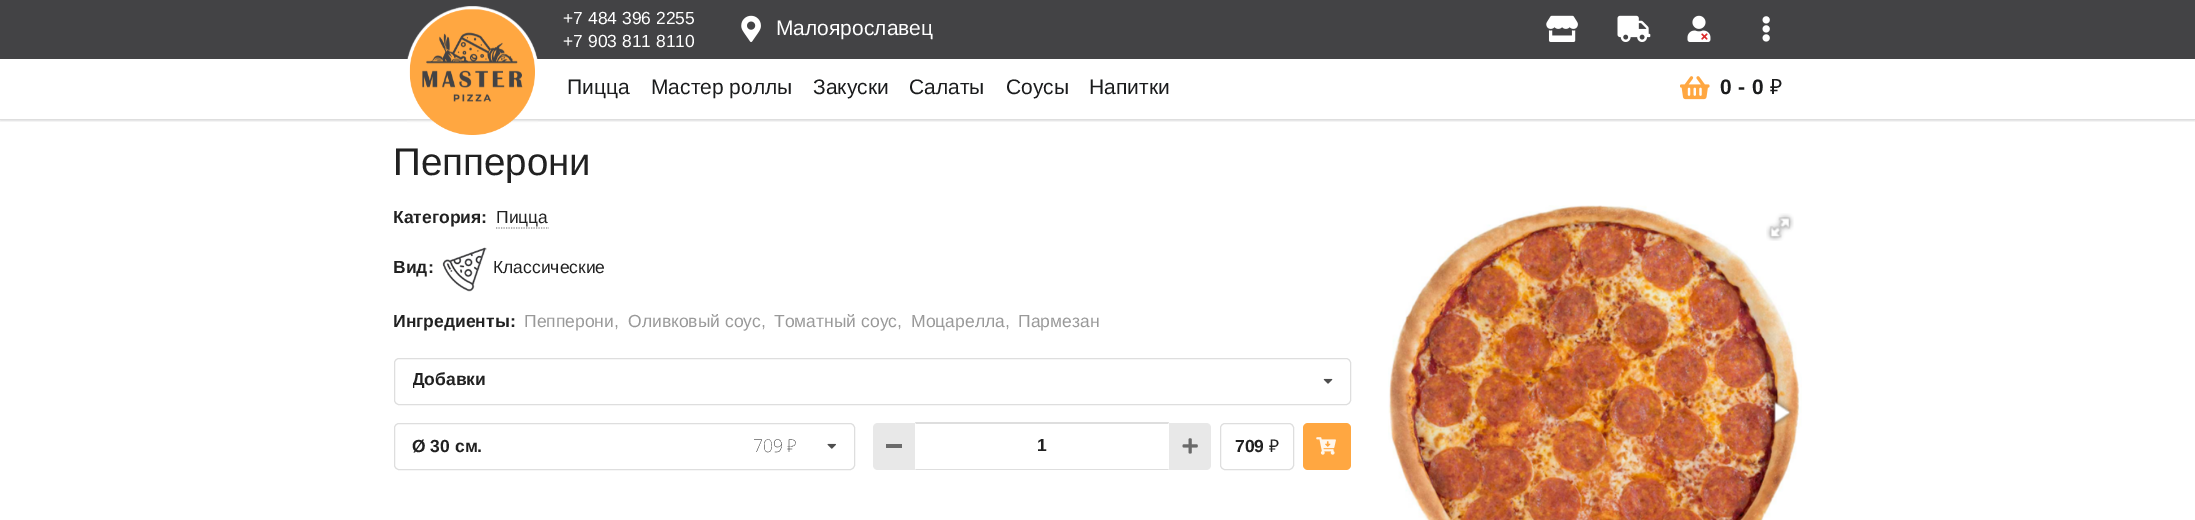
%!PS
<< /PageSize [2195 520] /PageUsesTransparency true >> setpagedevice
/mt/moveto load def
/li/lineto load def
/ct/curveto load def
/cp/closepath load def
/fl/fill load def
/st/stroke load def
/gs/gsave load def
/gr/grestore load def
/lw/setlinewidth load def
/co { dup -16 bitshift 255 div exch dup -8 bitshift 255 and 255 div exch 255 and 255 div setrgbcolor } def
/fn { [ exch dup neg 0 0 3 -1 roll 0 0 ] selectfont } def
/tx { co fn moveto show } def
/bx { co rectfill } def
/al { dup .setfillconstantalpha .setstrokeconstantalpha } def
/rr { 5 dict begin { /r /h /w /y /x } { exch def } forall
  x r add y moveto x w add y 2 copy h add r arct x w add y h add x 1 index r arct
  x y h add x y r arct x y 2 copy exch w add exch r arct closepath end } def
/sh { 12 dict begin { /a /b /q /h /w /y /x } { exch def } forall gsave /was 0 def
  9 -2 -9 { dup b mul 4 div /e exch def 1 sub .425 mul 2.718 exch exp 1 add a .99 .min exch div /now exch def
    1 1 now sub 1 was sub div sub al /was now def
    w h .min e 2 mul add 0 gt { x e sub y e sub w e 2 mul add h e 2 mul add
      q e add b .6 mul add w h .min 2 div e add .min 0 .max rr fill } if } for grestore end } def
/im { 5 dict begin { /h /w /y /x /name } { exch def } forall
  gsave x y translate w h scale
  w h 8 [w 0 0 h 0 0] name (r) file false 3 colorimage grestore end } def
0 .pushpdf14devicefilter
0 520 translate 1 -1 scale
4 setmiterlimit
0 0 2195 520 16#FFFFFF bx
0 0 2195 59 16#434345 bx
gs
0 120 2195 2 rectclip
16#222426 co
0 60 2195 61 0 1 .15 sh
gr
0 119 2195 1 16#DEDEDE bx
(media/1.raw) 407 6 131 129 im
(media/2.raw) 741 15 20 27 im
(media/3.raw) 1546 15 32 27 im
(media/4.raw) 1617 15 34 27 im
(media/5.raw) 1687 15 24 27 im
(media/6.raw) 1701 33 7 7 im
(media/7.raw) 1762 16 8 26 im
(media/8.raw) 1680 76 30 24 im
16#999999 co
1.2 lw
[1.25 1.25] 0 setdash
496 228 mt 549 228 li st
(media/9.raw) 442 247 45 45 im
16#DEDEDE co
1 lw
[] 0 setdash
394.5 358.5 956 46 4.5 rr st
(media/10.raw) 1323 378 10 6 im
394.5 423.5 460 46 4.5 rr st
(media/11.raw) 827 443 9 6 im
16#E8E8E8 co
878 423 mt 915 423 li 915 470 li 878 470 li 875 470 873 468 873 465 ct 873 428 li 873 425 875 423 878 423 ct cp fl
886 444 16 4 16#6B6B6B bx
16#DEDEDE co
915 422 mt 1169 422 li 1168 424 li 916 424 li cp fl
1169 470 mt 915 470 li 916 469 li 1168 469 li cp fl
16#E8E8E8 co
1169 423 mt 1206 423 li 1209 423 1211 425 1211 428 ct 1211 465 li 1211 468 1209 470 1206 470 ct 1169 470 li cp fl
(media/12.raw) 1182 438 16 16 im
16#DEDEDE co
1220.5 423.5 73 46 4.5 rr st
16#FFA741 co
1303 423 48 47 5 rr fl
(media/13.raw) 1316 437 20 18 im
(media/14.raw) 1388 205 414 315 im
(media/15.raw) 1766 213 28 28 im
(media/16.raw) 1400 402 15 21 im
(media/17.raw) 1770 399 23 27 im
(+7 484 396 2255) 563 24 /LiberationSans-Regular 17.5 16#FFFFFF tx
(+7 903 811 8110) 563 47 /LiberationSans-Regular 17.5 16#FFFFFF tx
(Малоярославец) 776 35 /LiberationSans-Regular 21 16#FFFFFF tx
(Пицца) 567 94 /LiberationSans-Regular 21 16#1B1C1D tx
(Мастер роллы) 651 94 /LiberationSans-Regular 21 16#1B1C1D tx
(Закуски) 813 94 /LiberationSans-Regular 21 16#1B1C1D tx
(Салаты) 909 94 /LiberationSans-Regular 21 16#1B1C1D tx
(Соусы) 1006 94 /LiberationSans-Regular 21 16#1B1C1D tx
(Напитки) 1089 94 /LiberationSans-Regular 21 16#1B1C1D tx
(0) 1720 94 /LiberationSans-Bold 21 16#1B1C1D tx
(-) 1738 94 /LiberationSans-Bold 21 16#1B1C1D tx
(0) 1752 94 /LiberationSans-Bold 21 16#1B1C1D tx
(₽) 1770 94 /NotoSans-Regular 21 16#1B1C1D tx
(Пепперони) 393 175 /LiberationSans-Regular 38.5 16#212121 tx
(Категория:) 393 223 /LiberationSans-Bold 17.5 16#212121 tx
(Пицца) 496 223 /LiberationSans-Regular 17.5 16#212121 tx
(Вид:) 393 273 /LiberationSans-Bold 17.5 16#212121 tx
(Классические) 493 273 /LiberationSans-Regular 17.5 16#212121 tx
(Ингредиенты:) 393 327 /LiberationSans-Bold 17.5 16#212121 tx
(Пепперони,) 524 327 /LiberationSans-Regular 17.5 16#999999 tx
(Оливковый соус,) 628 327 /LiberationSans-Regular 17.5 16#999999 tx
(Томатный соус,) 774 327 /LiberationSans-Regular 17.5 16#999999 tx
(Моцарелла,) 911 327 /LiberationSans-Regular 17.5 16#999999 tx
(Пармезан) 1018 327 /LiberationSans-Regular 17.5 16#999999 tx
gs
413 370 73 18 rectclip
(Добавки) 412 385 /LiberationSans-Bold 17.5 16#212121 tx
gr
(Ø 30 см.) 412 452 /LiberationSans-Bold 17.5 16#212121 tx
(709 ₽) 753 452 /NotoSans-Thin 17.5 16#212121 tx
(1) 1037 451 /LiberationSans-Bold 17.5 16#212121 tx
(709) 1235 452 /LiberationSans-Bold 17.5 16#212121 tx
(₽) 1269 452 /NotoSans-Regular 17.5 16#212121 tx
.poppdf14devicefilter showpage
